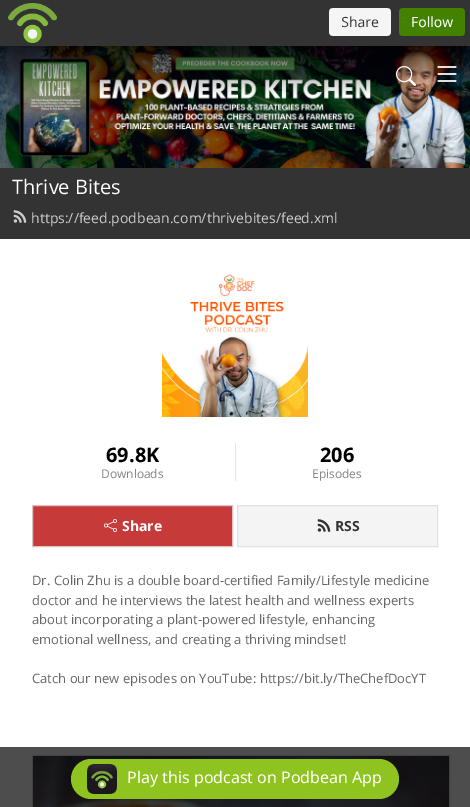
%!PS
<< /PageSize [470 807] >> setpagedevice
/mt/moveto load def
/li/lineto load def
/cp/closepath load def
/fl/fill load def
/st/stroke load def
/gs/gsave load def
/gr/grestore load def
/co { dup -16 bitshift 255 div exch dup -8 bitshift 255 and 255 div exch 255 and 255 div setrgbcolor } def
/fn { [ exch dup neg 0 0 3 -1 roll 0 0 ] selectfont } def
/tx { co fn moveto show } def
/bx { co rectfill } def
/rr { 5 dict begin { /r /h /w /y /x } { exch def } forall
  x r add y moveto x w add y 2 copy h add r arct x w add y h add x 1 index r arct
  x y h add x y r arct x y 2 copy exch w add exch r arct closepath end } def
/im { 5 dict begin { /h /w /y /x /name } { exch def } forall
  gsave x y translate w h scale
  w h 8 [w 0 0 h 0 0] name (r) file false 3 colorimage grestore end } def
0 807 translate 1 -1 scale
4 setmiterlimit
0 0 470 807 16#FFFFFF bx
0 747 470 60 16#4D4D4D bx
0 0 470 46 16#333333 bx
(media/1.raw) 8 3 457 40 im
(media/4.raw) 0 46 470 122 im
(media/2.raw) 396 66 20 20 im
(media/3.raw) 437 66 20 16 im
0 168 470 71 16#333333 bx
(media/5.raw) 13 210 14 13 im
(media/6.raw) 162 274 146 143 im
235 443 1 38 16#E6E6E6 bx
16#C73A3A co
32.5 505.5 mt 232.5 505.5 li 232.5 546.5 li 32.5 546.5 li cp gs fl gr
16#DDC0C0 co
st
(media/7.raw) 104 519 13 13 im
16#F4F4F4 co
237.5 505.5 mt 437.5 505.5 li 437.5 546.5 li 237.5 546.5 li cp gs fl gr
16#E2E2E2 co
st
(media/8.raw) 317 519 14 13 im
16#414141 co
32.5 755.5 417 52 rectstroke
(media/9.raw) 33 756 416 51 im
16#8FC31F co
71 759 328 40 20 rr fl
(media/10.raw) 87 764 30 30 im
(Thrive Bites) 12 194 /OpenSans-Regular 20 16#FFFFFF tx
(https://feed.podbean.com/thrivebites/feed.xml) 31 223 /OpenSans-Regular 14 16#CCCCCC tx
(69.8K) 106 462 /OpenSans-Bold 20 16#000000 tx
(Downloads) 101 478 /OpenSans-Regular 12 16#868686 tx
(206) 320 462 /OpenSans-Bold 20 16#000000 tx
(Episodes) 312 478 /OpenSans-Regular 12 16#868686 tx
(Share) 122 531 /OpenSans-Bold 14 16#FFFFFF tx
(RSS) 335 531 /OpenSans-Bold 14 16#333333 tx
(Dr. Colin Zhu is a double board-certified Family/Lifestyle medicine) 32 585 /OpenSans-Regular 13 16#646669 tx
(doctor and he interviews the latest health and wellness experts) 32 605 /OpenSans-Regular 13 16#646669 tx
(about incorporating a plant-powered lifestyle, enhancing) 32 624 /OpenSans-Regular 13 16#646669 tx
(emotional wellness, and creating a thriving mindset!) 32 644 /OpenSans-Regular 13 16#646669 tx
(Catch our new episodes on YouTube: https://bit.ly/TheChefDocYT) 32 683 /OpenSans-Regular 13 16#646669 tx
(Play this podcast on Podbean App) 127 783 /NotoSans-Regular 16 16#FFFFFF tx
showpage
